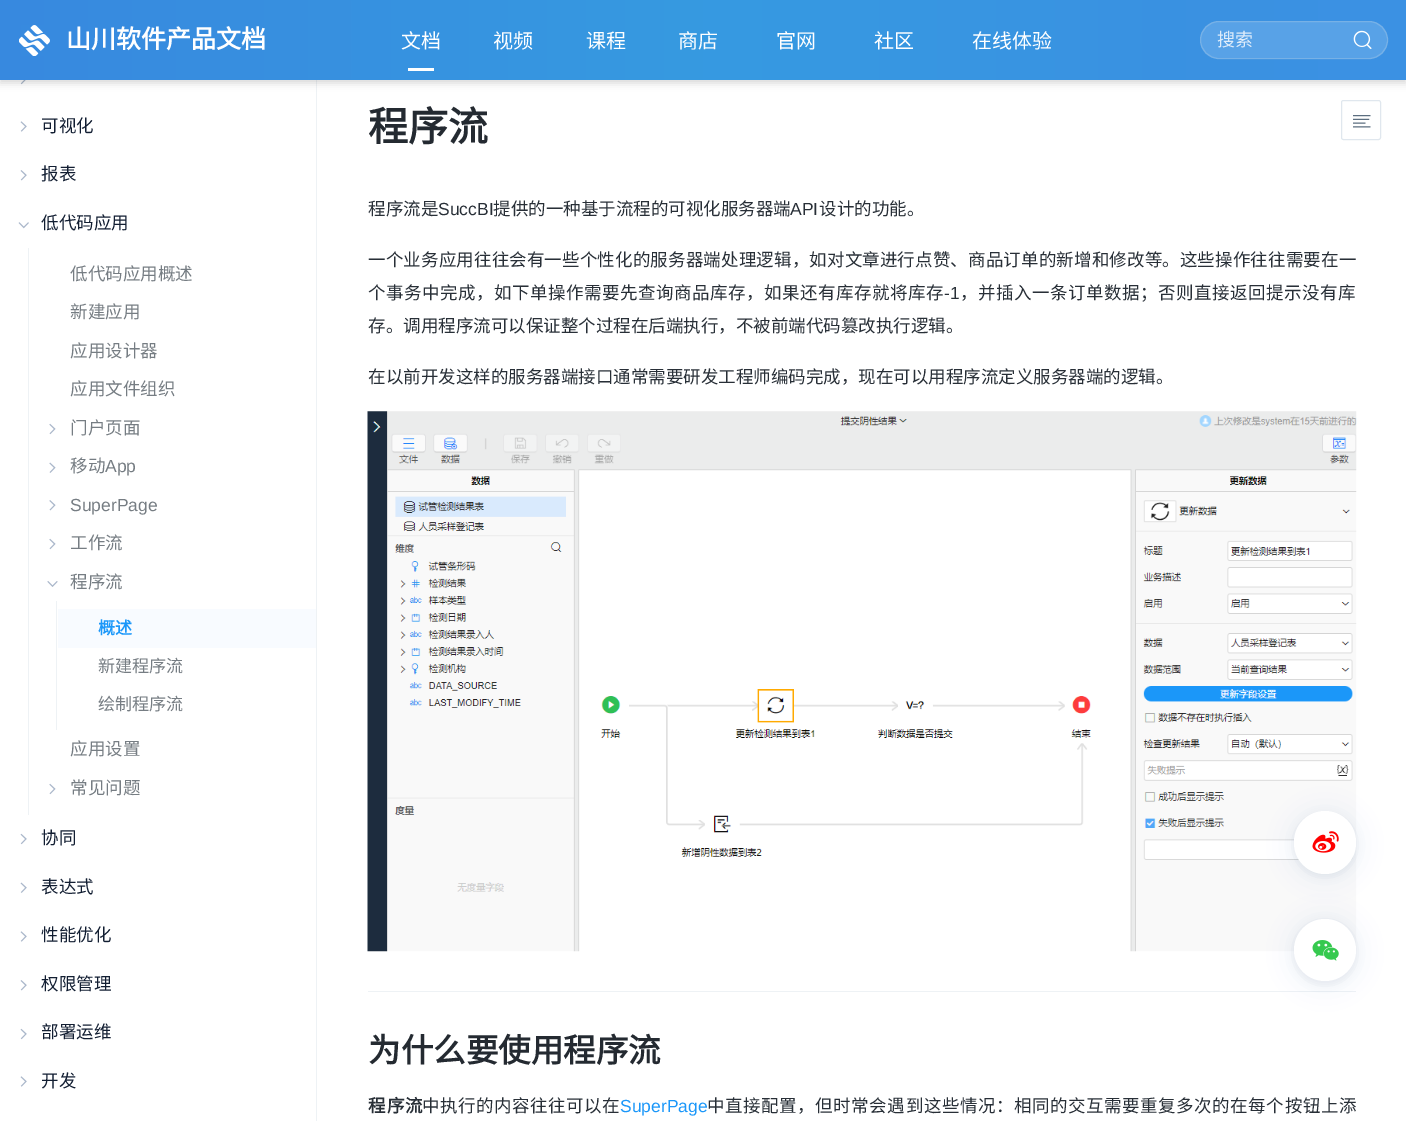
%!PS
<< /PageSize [1406 1121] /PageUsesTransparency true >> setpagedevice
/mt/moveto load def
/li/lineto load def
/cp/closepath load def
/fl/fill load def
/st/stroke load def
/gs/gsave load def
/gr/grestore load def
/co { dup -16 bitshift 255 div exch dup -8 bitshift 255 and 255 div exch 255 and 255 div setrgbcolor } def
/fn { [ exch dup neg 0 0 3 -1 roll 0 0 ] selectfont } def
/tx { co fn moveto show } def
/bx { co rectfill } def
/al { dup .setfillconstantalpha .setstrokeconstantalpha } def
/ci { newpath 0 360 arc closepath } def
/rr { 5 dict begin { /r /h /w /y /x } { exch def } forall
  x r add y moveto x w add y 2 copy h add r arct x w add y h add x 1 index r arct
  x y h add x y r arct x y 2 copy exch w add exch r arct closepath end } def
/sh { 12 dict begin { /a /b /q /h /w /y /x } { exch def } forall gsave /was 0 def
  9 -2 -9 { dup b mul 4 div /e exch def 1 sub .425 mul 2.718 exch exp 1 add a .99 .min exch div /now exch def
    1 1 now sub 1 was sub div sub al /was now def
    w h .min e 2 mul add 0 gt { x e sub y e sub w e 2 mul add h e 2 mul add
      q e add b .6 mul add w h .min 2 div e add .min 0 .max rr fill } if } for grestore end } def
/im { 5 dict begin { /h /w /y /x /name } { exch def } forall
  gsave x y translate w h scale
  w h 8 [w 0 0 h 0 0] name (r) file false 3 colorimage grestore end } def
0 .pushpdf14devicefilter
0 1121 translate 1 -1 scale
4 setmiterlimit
0 0 1406 1121 16#FFFFFF bx
316 80 1 1041 16#EEF2F5 bx
(media/3.raw) 20 80 6 5 im
16#000000 co
0 3 1406 80 0 4 .16 sh
gs 0 0 mt 1406 0 li 1406 80 li 0 80 li cp clip newpath
<< /ShadingType 2 /ColorSpace /DeviceRGB /Coords [0 40 1406 40] /Extend [true true] /Function << /FunctionType 3 /Domain [0 1] /Functions [<< /FunctionType 2 /Domain [0 1] /C0 [.216 .537 .875] /C1 [.212 .604 .882] /N 1 >> << /FunctionType 2 /Domain [0 1] /C0 [.212 .604 .882] /C1 [.227 .569 .882] /N 1 >> << /FunctionType 2 /Domain [0 1] /C0 [.227 .569 .882] /C1 [.231 .569 .89] /N 1 >> << /FunctionType 2 /Domain [0 1] /C0 [.231 .569 .89] /C1 [.231 .569 .89] /N 1 >>] /Bounds [.5 .85 .96] /Encode [0 1 0 1 0 1 0 1] >> >> shfill gr
(media/1.raw) 19 25 31 31 im
408 68 26 3 16#FFFFFF bx
16#58A2E7 co
1200 21 188 38 19 rr fl
0.24 al
16#D8DFE4 co
1200.5 21.5 187 37 18.5 rr st
1 al
(media/2.raw) 1353 30 19 19 im
(media/4.raw) 20 121 7 11 im
(media/5.raw) 20 170 7 11 im
(media/6.raw) 18 222 11 7 im
28 248 1 567 16#EEF2F5 bx
(media/7.raw) 49 423 7 12 im
(media/8.raw) 49 462 7 11 im
(media/9.raw) 49 500 7 11 im
(media/7.raw) 49 538 7 12 im
(media/10.raw) 47 581 11 6 im
56 601 1 129 16#EEF2F5 bx
58 609 258 39 16#F8FBFF bx
(media/7.raw) 49 783 7 12 im
(media/11.raw) 20 833 7 12 im
(media/12.raw) 20 882 7 11 im
(media/4.raw) 20 931 7 11 im
(media/5.raw) 20 980 7 11 im
(media/11.raw) 20 1028 7 12 im
(media/4.raw) 20 1076 7 11 im
(media/13.raw) 367 411 990 541 im
368 991 988 1 16#EEF2F5 bx
16#E0E7EE co
1341.5 100.5 39 39 2 rr st
(media/14.raw) 1353 115 18 13 im
16#004E99 co
1294 814 62 62 31 12.5 .08 sh
16#001A2F co
1294 814 62 62 31 4 .05 sh
16#FFFFFF co
1294 811 62 63 31 rr fl
(media/15.raw) 1312 831 27 22 im
16#004E99 co
1294 921 62 63 31 12.5 .08 sh
16#001A2F co
1294 921 62 63 31 4 .05 sh
16#FFFFFF co
1325 950 31 ci fl
(media/16.raw) 1312 940 27 21 im
(山川软件产品文档) 66 48 /NotoSansCJKSC-Bold 25 16#FFFFFF tx
(文档) 401 48 /NotoSansCJKSC-Regular 20 16#FFFFFF tx
(视频) 493 48 /NotoSansCJKSC-Regular 20 16#FFFFFF tx
(课程) 586 48 /NotoSansCJKSC-Regular 20 16#FFFFFF tx
(商店) 678 48 /NotoSansCJKSC-Regular 20 16#FFFFFF tx
(官网) 776 48 /NotoSansCJKSC-Regular 20 16#FFFFFF tx
(社区) 874 48 /NotoSansCJKSC-Regular 20 16#FFFFFF tx
(在线体验) 972 48 /NotoSansCJKSC-Regular 20 16#FFFFFF tx
(搜索) 1217 46 /NotoSansCJKSC-Regular 18 16#DEECFA tx
(可视化) 41 132 /NotoSansCJKSC-Regular 17.5 16#121E32 tx
(报表) 41 180 /NotoSansCJKSC-Regular 17.5 16#121E32 tx
(低代码应用) 41 229 /NotoSansCJKSC-Regular 17.5 16#121E32 tx
(低代码应用概述) 70 280 /NotoSansCJKSC-Regular 17.5 16#767D83 tx
(新建应用) 70 318 /NotoSansCJKSC-Regular 17.5 16#767D83 tx
(应用设计器) 70 357 /NotoSansCJKSC-Regular 17.5 16#767D83 tx
(应用文件组织) 70 395 /NotoSansCJKSC-Regular 17.5 16#767D83 tx
(门户页面) 70 434 /NotoSansCJKSC-Regular 17.5 16#767D83 tx
(移动) 70 472 /NotoSansCJKSC-Regular 17.5 16#767D83 tx
(App) 105 472 /LiberationSans-Regular 17.5 16#767D83 tx
(SuperPage) 70 511 /LiberationSans-Regular 17.5 16#767D83 tx
(工作流) 70 549 /NotoSansCJKSC-Regular 17.5 16#767D83 tx
(程序流) 70 588 /NotoSansCJKSC-Regular 17.5 16#767D83 tx
(概述) 98 634 /NotoSansCJKSC-Bold 17 16#1B97F9 tx
(新建程序流) 98 672 /NotoSansCJKSC-Regular 17 16#767D83 tx
(绘制程序流) 98 710 /NotoSansCJKSC-Regular 17 16#767D83 tx
(应用设置) 70 755 /NotoSansCJKSC-Regular 17.5 16#767D83 tx
(常见问题) 70 794 /NotoSansCJKSC-Regular 17.5 16#767D83 tx
(协同) 41 844 /NotoSansCJKSC-Regular 17.5 16#121E32 tx
(表达式) 41 893 /NotoSansCJKSC-Regular 17.5 16#121E32 tx
(性能优化) 41 941 /NotoSansCJKSC-Regular 17.5 16#121E32 tx
(权限管理) 41 990 /NotoSansCJKSC-Regular 17.5 16#121E32 tx
(部署运维) 41 1038 /NotoSansCJKSC-Regular 17.5 16#121E32 tx
(开发) 41 1087 /NotoSansCJKSC-Regular 17.5 16#121E32 tx
(程序流) 368 141 /NotoSansCJKSC-Bold 40 16#242A31 tx
(程序流是) 368 215 /NotoSansCJKSC-Regular 17.5 16#282F37 tx
(SuccBI) 438 215 /LiberationSans-Regular 17.5 16#282F37 tx
(提供的一种基于流程的可视化服务器端) 493 215 /NotoSansCJKSC-Regular 17.5 16#282F37 tx
(API) 790 215 /LiberationSans-Regular 17.5 16#282F37 tx
(设计的功能。) 819 215 /NotoSansCJKSC-Regular 17.5 16#282F37 tx
368 266 mt .15 0 (一个业务应用往往会有一些个性化的服务器端处理逻辑，如对文章进行点赞、商品订单的新增和修改等。这些操作往往需要在一) ashow
368 299 mt .5 0 (个事务中完成，如下单操作需要先查询商品库存，如果还有库存就将库存) ashow
/LiberationSans-Regular 17.5 fn
944 299 mt .5 0 (-1) ashow
/NotoSansCJKSC-Regular 17.5 fn
960 299 mt .5 0 (，并插入一条订单数据；否则直接返回提示没有库) ashow
(存。调用程序流可以保证整个过程在后端执行，不被前端代码篡改执行逻辑。) 368 332 /NotoSansCJKSC-Regular 17.5 16#282F37 tx
(在以前开发这样的服务器端接口通常需要研发工程师编码完成，现在可以用程序流定义服务器端的逻辑。) 368 383 /NotoSansCJKSC-Regular 17.5 16#282F37 tx
(为什么要使用程序流) 368 1062 /NotoSansCJKSC-Bold 32.5 16#242A31 tx
/NotoSansCJKSC-Bold 17.5 fn
16#282F37 co
368 1112 mt 1 0 (程序流) ashow
/NotoSansCJKSC-Regular 17.5 fn
422 1112 mt .5 0 (中执行的内容往往可以在) ashow
(SuperPage) 620 1112 /LiberationSans-Regular 17.5 16#1B97F9 tx
/NotoSansCJKSC-Regular 17.5 fn
16#282F37 co
707 1112 mt .55 0 (中直接配置，但时常会遇到这些情况：相同的交互需要重复多次的在每个按钮上添) ashow
.poppdf14devicefilter showpage
